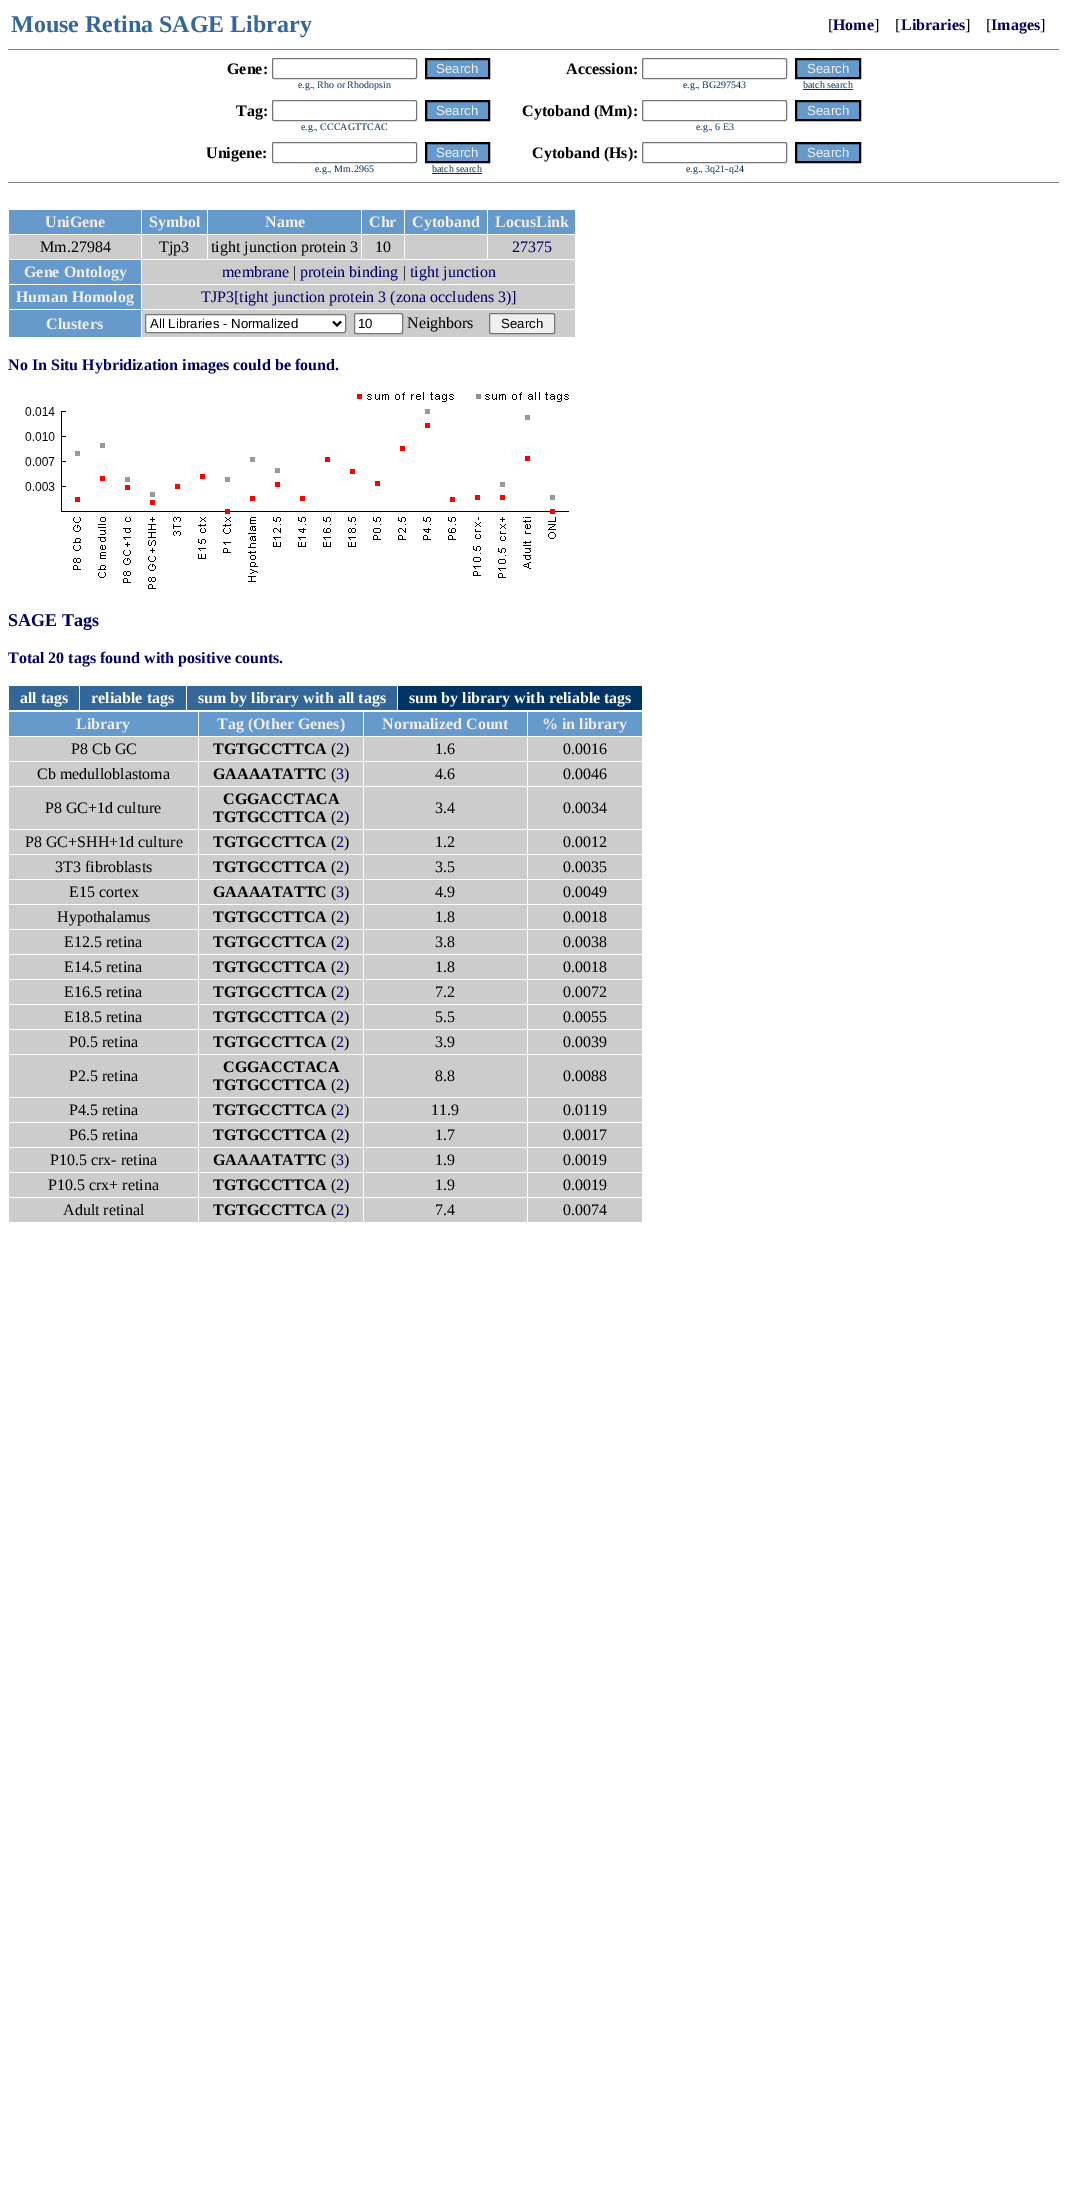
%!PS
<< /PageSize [1067 2200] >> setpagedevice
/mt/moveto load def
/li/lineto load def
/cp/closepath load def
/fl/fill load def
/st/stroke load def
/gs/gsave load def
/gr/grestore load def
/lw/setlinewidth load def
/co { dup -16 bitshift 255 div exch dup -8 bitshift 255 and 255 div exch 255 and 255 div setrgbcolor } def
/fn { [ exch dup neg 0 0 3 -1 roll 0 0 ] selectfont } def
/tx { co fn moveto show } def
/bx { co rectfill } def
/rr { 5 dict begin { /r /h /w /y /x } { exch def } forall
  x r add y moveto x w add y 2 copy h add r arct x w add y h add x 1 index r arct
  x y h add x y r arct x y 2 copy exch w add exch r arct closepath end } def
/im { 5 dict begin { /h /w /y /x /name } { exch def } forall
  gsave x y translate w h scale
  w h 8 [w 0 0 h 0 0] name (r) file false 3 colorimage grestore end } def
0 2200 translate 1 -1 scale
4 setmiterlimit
0 0 1067 2200 16#FFFFFF bx
8 49 1051 1 16#808080 bx
16#767676 co
272.5 58.5 144 20 1.5 rr st
16#6699CC co
426 59 mt 489 59 li 489 78 li 426 78 li cp gs fl gr
16#000000 co
2 lw
st
16#767676 co
1 lw
642.5 58.5 144 20 1.5 rr st
16#6699CC co
796 59 mt 860 59 li 860 78 li 796 78 li cp gs fl gr
16#000000 co
2 lw
st
803 89 50 1 16#003366 bx
16#767676 co
1 lw
272.5 100.5 144 20 1.5 rr st
16#6699CC co
426 101 mt 489 101 li 489 120 li 426 120 li cp gs fl gr
16#000000 co
2 lw
st
16#767676 co
1 lw
642.5 100.5 144 20 1.5 rr st
16#6699CC co
796 101 mt 860 101 li 860 120 li 796 120 li cp gs fl gr
16#000000 co
2 lw
st
16#767676 co
1 lw
272.5 142.5 144 20 1.5 rr st
16#6699CC co
426 143 mt 489 143 li 489 162 li 426 162 li cp gs fl gr
16#000000 co
2 lw
st
16#767676 co
1 lw
642.5 142.5 144 20 1.5 rr st
16#6699CC co
796 143 mt 860 143 li 860 162 li 796 162 li cp gs fl gr
16#000000 co
2 lw
st
432 173 50 1 16#003366 bx
8 182 1051 1 16#808080 bx
9 210 132 24 16#6699CC bx
142 210 65 24 16#6699CC bx
208 210 153 24 16#6699CC bx
362 210 42 24 16#6699CC bx
405 210 82 24 16#6699CC bx
488 210 87 24 16#6699CC bx
9 235 132 24 16#CCCCCC bx
142 235 65 24 16#CCCCCC bx
208 235 153 24 16#CCCCCC bx
362 235 42 24 16#CCCCCC bx
405 235 82 24 16#CCCCCC bx
488 235 87 24 16#CCCCCC bx
9 260 132 24 16#6699CC bx
142 260 433 24 16#CCCCCC bx
9 285 132 24 16#6699CC bx
142 285 433 24 16#CCCCCC bx
9 310 132 27 16#6699CC bx
142 310 433 27 16#CCCCCC bx
16#FFFFFF co
145.5 314.5 200 18 1.5 rr gs fl gr
16#767676 co
1 lw
st
16#000000 co
2 lw
333 321.5 mt 337 325.5 li 341 321.5 li st
16#FFFFFF co
354.5 313.5 48 20 1.5 rr gs fl gr
16#767676 co
1 lw
st
16#EFEFEF co
489.5 313.5 65 20 1.5 rr gs fl gr
16#767676 co
st
(media/1.raw) 25 392 544 197 im
9 686 70 24 16#336699 bx
80 686 106 24 16#336699 bx
187 686 210 24 16#336699 bx
398 686 244 24 16#003366 bx
9 712 189 24 16#6699CC bx
199 712 164 24 16#6699CC bx
364 712 163 24 16#6699CC bx
528 712 114 24 16#6699CC bx
9 737 189 24 16#CCCCCC bx
199 737 164 24 16#CCCCCC bx
364 737 163 24 16#CCCCCC bx
528 737 114 24 16#CCCCCC bx
9 762 189 24 16#CCCCCC bx
199 762 164 24 16#CCCCCC bx
364 762 163 24 16#CCCCCC bx
528 762 114 24 16#CCCCCC bx
9 787 189 42 16#CCCCCC bx
199 787 164 42 16#CCCCCC bx
364 787 163 42 16#CCCCCC bx
528 787 114 42 16#CCCCCC bx
9 830 189 24 16#CCCCCC bx
199 830 164 24 16#CCCCCC bx
364 830 163 24 16#CCCCCC bx
528 830 114 24 16#CCCCCC bx
9 855 189 24 16#CCCCCC bx
199 855 164 24 16#CCCCCC bx
364 855 163 24 16#CCCCCC bx
528 855 114 24 16#CCCCCC bx
9 880 189 24 16#CCCCCC bx
199 880 164 24 16#CCCCCC bx
364 880 163 24 16#CCCCCC bx
528 880 114 24 16#CCCCCC bx
9 905 189 24 16#CCCCCC bx
199 905 164 24 16#CCCCCC bx
364 905 163 24 16#CCCCCC bx
528 905 114 24 16#CCCCCC bx
9 930 189 24 16#CCCCCC bx
199 930 164 24 16#CCCCCC bx
364 930 163 24 16#CCCCCC bx
528 930 114 24 16#CCCCCC bx
9 955 189 24 16#CCCCCC bx
199 955 164 24 16#CCCCCC bx
364 955 163 24 16#CCCCCC bx
528 955 114 24 16#CCCCCC bx
9 980 189 24 16#CCCCCC bx
199 980 164 24 16#CCCCCC bx
364 980 163 24 16#CCCCCC bx
528 980 114 24 16#CCCCCC bx
9 1005 189 24 16#CCCCCC bx
199 1005 164 24 16#CCCCCC bx
364 1005 163 24 16#CCCCCC bx
528 1005 114 24 16#CCCCCC bx
9 1030 189 24 16#CCCCCC bx
199 1030 164 24 16#CCCCCC bx
364 1030 163 24 16#CCCCCC bx
528 1030 114 24 16#CCCCCC bx
9 1055 189 42 16#CCCCCC bx
199 1055 164 42 16#CCCCCC bx
364 1055 163 42 16#CCCCCC bx
528 1055 114 42 16#CCCCCC bx
9 1098 189 24 16#CCCCCC bx
199 1098 164 24 16#CCCCCC bx
364 1098 163 24 16#CCCCCC bx
528 1098 114 24 16#CCCCCC bx
9 1123 189 24 16#CCCCCC bx
199 1123 164 24 16#CCCCCC bx
364 1123 163 24 16#CCCCCC bx
528 1123 114 24 16#CCCCCC bx
9 1148 189 24 16#CCCCCC bx
199 1148 164 24 16#CCCCCC bx
364 1148 163 24 16#CCCCCC bx
528 1148 114 24 16#CCCCCC bx
9 1173 189 24 16#CCCCCC bx
199 1173 164 24 16#CCCCCC bx
364 1173 163 24 16#CCCCCC bx
528 1173 114 24 16#CCCCCC bx
9 1198 189 24 16#CCCCCC bx
199 1198 164 24 16#CCCCCC bx
364 1198 163 24 16#CCCCCC bx
528 1198 114 24 16#CCCCCC bx
(Mouse Retina SAGE Library) 11 32 /LiberationSerif-Bold 24 16#336699 tx
([) 828 30 /LiberationSerif-Regular 16 16#000000 tx
(Home) 833 30 /LiberationSerif-Bold 16 16#000066 tx
(]    [) 874 30 /LiberationSerif-Regular 16 16#000000 tx
(Libraries) 901 30 /LiberationSerif-Bold 16 16#000066 tx
(]    [) 965 30 /LiberationSerif-Regular 16 16#000000 tx
(Images) 991 30 /LiberationSerif-Bold 16 16#000066 tx
(]) 1040 30 /LiberationSerif-Regular 16 16#000000 tx
(Gene:) 227 74 /LiberationSerif-Bold 16 16#000000 tx
(Search) 436 73 /LiberationSans-Regular 13.25 16#F0F0F0 tx
(Accession:) 566 74 /LiberationSerif-Bold 16 16#000000 tx
(Search) 807 73 /LiberationSans-Regular 13.25 16#F0F0F0 tx
(e.g., Rho or Rhodopsin) 298 88 /LiberationSerif-Regular 10 16#003366 tx
(e.g., BG297543) 683 88 /LiberationSerif-Regular 10 16#003366 tx
(batch search) 803 88 /LiberationSerif-Regular 10 16#003366 tx
(Tag:) 236 116 /LiberationSerif-Bold 16 16#000000 tx
(Search) 436 115 /LiberationSans-Regular 13.25 16#F0F0F0 tx
(Cytoband \(Mm\):) 522 116 /LiberationSerif-Bold 16 16#000000 tx
(Search) 807 115 /LiberationSans-Regular 13.25 16#F0F0F0 tx
(e.g., CCCAGTTCAC) 301 130 /LiberationSerif-Regular 10 16#003366 tx
(e.g., 6 E3) 696 130 /LiberationSerif-Regular 10 16#003366 tx
(Unigene:) 206 158 /LiberationSerif-Bold 16 16#000000 tx
(Search) 436 157 /LiberationSans-Regular 13.25 16#F0F0F0 tx
(Cytoband \(Hs\):) 532 158 /LiberationSerif-Bold 16 16#000000 tx
(Search) 807 157 /LiberationSans-Regular 13.25 16#F0F0F0 tx
(e.g., Mm.2965) 315 172 /LiberationSerif-Regular 10 16#003366 tx
(batch search) 432 172 /LiberationSerif-Regular 10 16#003366 tx
(e.g., 3q21-q24) 686 172 /LiberationSerif-Regular 10 16#003366 tx
(UniGene) 45 227 /LiberationSerif-Bold 16 16#F0F0F0 tx
(Symbol) 149 227 /LiberationSerif-Bold 16 16#F0F0F0 tx
(Name) 265 227 /LiberationSerif-Bold 16 16#F0F0F0 tx
(Chr) 369 227 /LiberationSerif-Bold 16 16#F0F0F0 tx
(Cytoband) 412 227 /LiberationSerif-Bold 16 16#F0F0F0 tx
(LocusLink) 495 227 /LiberationSerif-Bold 16 16#F0F0F0 tx
(Mm.27984) 40 252 /LiberationSerif-Regular 16 16#000000 tx
(Tjp3) 159 252 /LiberationSerif-Regular 16 16#000000 tx
(tight junction protein 3) 211 252 /LiberationSerif-Regular 16 16#000000 tx
(10) 375 252 /LiberationSerif-Regular 16 16#000000 tx
(27375) 512 252 /LiberationSerif-Regular 16 16#000066 tx
(Gene Ontology) 24 277 /LiberationSerif-Bold 16 16#F0F0F0 tx
(membrane) 222 277 /LiberationSerif-Regular 16 16#000066 tx
(|) 293 277 /LiberationSerif-Regular 16 16#000000 tx
(protein binding) 300 277 /LiberationSerif-Regular 16 16#000066 tx
(|) 403 277 /LiberationSerif-Regular 16 16#000000 tx
(tight junction) 410 277 /LiberationSerif-Regular 16 16#000066 tx
(Human Homolog) 16 302 /LiberationSerif-Bold 16 16#F0F0F0 tx
(TJP3[tight junction protein 3 \(zona occludens 3\)]) 201 302 /LiberationSerif-Regular 16 16#000066 tx
(Clusters) 46 329 /LiberationSerif-Bold 16 16#F0F0F0 tx
(All Libraries - Normalized) 150 328 /LiberationSans-Regular 13.25 16#000000 tx
(10) 358 328 /LiberationSans-Regular 13.25 16#000000 tx
(Neighbors) 407 328 /LiberationSerif-Regular 16 16#000000 tx
(Search) 501 328 /LiberationSans-Regular 13.25 16#000000 tx
(No In Situ Hybridization images could be found.) 8 370 /LiberationSerif-Bold 16 16#000066 tx
(SAGE Tags) 8 626 /LiberationSerif-Bold 18 16#000066 tx
(Total 20 tags found with positive counts.) 8 663 /LiberationSerif-Bold 16 16#000066 tx
(all tags) 20 703 /LiberationSerif-Bold 16 16#FFFFFF tx
(reliable tags) 91 703 /LiberationSerif-Bold 16 16#FFFFFF tx
(sum by library with all tags) 198 703 /LiberationSerif-Bold 16 16#FFFFFF tx
(sum by library with reliable tags) 409 703 /LiberationSerif-Bold 16 16#FFFFFF tx
(Library) 76 729 /LiberationSerif-Bold 16 16#F0F0F0 tx
(Tag \(Other Genes\)) 217 729 /LiberationSerif-Bold 16 16#F0F0F0 tx
(Normalized Count) 382 729 /LiberationSerif-Bold 16 16#F0F0F0 tx
(% in library) 542 729 /LiberationSerif-Bold 16 16#F0F0F0 tx
(P8 Cb GC) 71 754 /LiberationSerif-Regular 16 16#000000 tx
(TGTGCCTTCA) 213 754 /LiberationSerif-Bold 16 16#000000 tx
(\() 331 754 /LiberationSerif-Regular 16 16#000000 tx
(2) 336 754 /LiberationSerif-Regular 16 16#000066 tx
(\)) 344 754 /LiberationSerif-Regular 16 16#000000 tx
(1.6) 435 754 /LiberationSerif-Regular 16 16#000000 tx
(0.0016) 563 754 /LiberationSerif-Regular 16 16#000000 tx
(Cb medulloblastoma) 37 779 /LiberationSerif-Regular 16 16#000000 tx
(GAAAATATTC) 213 779 /LiberationSerif-Bold 16 16#000000 tx
(\() 331 779 /LiberationSerif-Regular 16 16#000000 tx
(3) 336 779 /LiberationSerif-Regular 16 16#000066 tx
(\)) 344 779 /LiberationSerif-Regular 16 16#000000 tx
(4.6) 435 779 /LiberationSerif-Regular 16 16#000000 tx
(0.0046) 563 779 /LiberationSerif-Regular 16 16#000000 tx
(P8 GC+1d culture) 45 813 /LiberationSerif-Regular 16 16#000000 tx
(CGGACCTACA) 223 804 /LiberationSerif-Bold 16 16#000000 tx
(TGTGCCTTCA) 213 822 /LiberationSerif-Bold 16 16#000000 tx
(\() 331 822 /LiberationSerif-Regular 16 16#000000 tx
(2) 336 822 /LiberationSerif-Regular 16 16#000066 tx
(\)) 344 822 /LiberationSerif-Regular 16 16#000000 tx
(3.4) 435 813 /LiberationSerif-Regular 16 16#000000 tx
(0.0034) 563 813 /LiberationSerif-Regular 16 16#000000 tx
(P8 GC+SHH+1d culture) 25 847 /LiberationSerif-Regular 16 16#000000 tx
(TGTGCCTTCA) 213 847 /LiberationSerif-Bold 16 16#000000 tx
(\() 331 847 /LiberationSerif-Regular 16 16#000000 tx
(2) 336 847 /LiberationSerif-Regular 16 16#000066 tx
(\)) 344 847 /LiberationSerif-Regular 16 16#000000 tx
(1.2) 435 847 /LiberationSerif-Regular 16 16#000000 tx
(0.0012) 563 847 /LiberationSerif-Regular 16 16#000000 tx
(3T3 fibroblasts) 55 872 /LiberationSerif-Regular 16 16#000000 tx
(TGTGCCTTCA) 213 872 /LiberationSerif-Bold 16 16#000000 tx
(\() 331 872 /LiberationSerif-Regular 16 16#000000 tx
(2) 336 872 /LiberationSerif-Regular 16 16#000066 tx
(\)) 344 872 /LiberationSerif-Regular 16 16#000000 tx
(3.5) 435 872 /LiberationSerif-Regular 16 16#000000 tx
(0.0035) 563 872 /LiberationSerif-Regular 16 16#000000 tx
(E15 cortex) 69 897 /LiberationSerif-Regular 16 16#000000 tx
(GAAAATATTC) 213 897 /LiberationSerif-Bold 16 16#000000 tx
(\() 331 897 /LiberationSerif-Regular 16 16#000000 tx
(3) 336 897 /LiberationSerif-Regular 16 16#000066 tx
(\)) 344 897 /LiberationSerif-Regular 16 16#000000 tx
(4.9) 435 897 /LiberationSerif-Regular 16 16#000000 tx
(0.0049) 563 897 /LiberationSerif-Regular 16 16#000000 tx
(Hypothalamus) 57 922 /LiberationSerif-Regular 16 16#000000 tx
(TGTGCCTTCA) 213 922 /LiberationSerif-Bold 16 16#000000 tx
(\() 331 922 /LiberationSerif-Regular 16 16#000000 tx
(2) 336 922 /LiberationSerif-Regular 16 16#000066 tx
(\)) 344 922 /LiberationSerif-Regular 16 16#000000 tx
(1.8) 435 922 /LiberationSerif-Regular 16 16#000000 tx
(0.0018) 563 922 /LiberationSerif-Regular 16 16#000000 tx
(E12.5 retina) 64 947 /LiberationSerif-Regular 16 16#000000 tx
(TGTGCCTTCA) 213 947 /LiberationSerif-Bold 16 16#000000 tx
(\() 331 947 /LiberationSerif-Regular 16 16#000000 tx
(2) 336 947 /LiberationSerif-Regular 16 16#000066 tx
(\)) 344 947 /LiberationSerif-Regular 16 16#000000 tx
(3.8) 435 947 /LiberationSerif-Regular 16 16#000000 tx
(0.0038) 563 947 /LiberationSerif-Regular 16 16#000000 tx
(E14.5 retina) 64 972 /LiberationSerif-Regular 16 16#000000 tx
(TGTGCCTTCA) 213 972 /LiberationSerif-Bold 16 16#000000 tx
(\() 331 972 /LiberationSerif-Regular 16 16#000000 tx
(2) 336 972 /LiberationSerif-Regular 16 16#000066 tx
(\)) 344 972 /LiberationSerif-Regular 16 16#000000 tx
(1.8) 435 972 /LiberationSerif-Regular 16 16#000000 tx
(0.0018) 563 972 /LiberationSerif-Regular 16 16#000000 tx
(E16.5 retina) 64 997 /LiberationSerif-Regular 16 16#000000 tx
(TGTGCCTTCA) 213 997 /LiberationSerif-Bold 16 16#000000 tx
(\() 331 997 /LiberationSerif-Regular 16 16#000000 tx
(2) 336 997 /LiberationSerif-Regular 16 16#000066 tx
(\)) 344 997 /LiberationSerif-Regular 16 16#000000 tx
(7.2) 435 997 /LiberationSerif-Regular 16 16#000000 tx
(0.0072) 563 997 /LiberationSerif-Regular 16 16#000000 tx
(E18.5 retina) 64 1022 /LiberationSerif-Regular 16 16#000000 tx
(TGTGCCTTCA) 213 1022 /LiberationSerif-Bold 16 16#000000 tx
(\() 331 1022 /LiberationSerif-Regular 16 16#000000 tx
(2) 336 1022 /LiberationSerif-Regular 16 16#000066 tx
(\)) 344 1022 /LiberationSerif-Regular 16 16#000000 tx
(5.5) 435 1022 /LiberationSerif-Regular 16 16#000000 tx
(0.0055) 563 1022 /LiberationSerif-Regular 16 16#000000 tx
(P0.5 retina) 69 1047 /LiberationSerif-Regular 16 16#000000 tx
(TGTGCCTTCA) 213 1047 /LiberationSerif-Bold 16 16#000000 tx
(\() 331 1047 /LiberationSerif-Regular 16 16#000000 tx
(2) 336 1047 /LiberationSerif-Regular 16 16#000066 tx
(\)) 344 1047 /LiberationSerif-Regular 16 16#000000 tx
(3.9) 435 1047 /LiberationSerif-Regular 16 16#000000 tx
(0.0039) 563 1047 /LiberationSerif-Regular 16 16#000000 tx
(P2.5 retina) 69 1081 /LiberationSerif-Regular 16 16#000000 tx
(CGGACCTACA) 223 1072 /LiberationSerif-Bold 16 16#000000 tx
(TGTGCCTTCA) 213 1090 /LiberationSerif-Bold 16 16#000000 tx
(\() 331 1090 /LiberationSerif-Regular 16 16#000000 tx
(2) 336 1090 /LiberationSerif-Regular 16 16#000066 tx
(\)) 344 1090 /LiberationSerif-Regular 16 16#000000 tx
(8.8) 435 1081 /LiberationSerif-Regular 16 16#000000 tx
(0.0088) 563 1081 /LiberationSerif-Regular 16 16#000000 tx
(P4.5 retina) 69 1115 /LiberationSerif-Regular 16 16#000000 tx
(TGTGCCTTCA) 213 1115 /LiberationSerif-Bold 16 16#000000 tx
(\() 331 1115 /LiberationSerif-Regular 16 16#000000 tx
(2) 336 1115 /LiberationSerif-Regular 16 16#000066 tx
(\)) 344 1115 /LiberationSerif-Regular 16 16#000000 tx
(11.9) 431 1115 /LiberationSerif-Regular 16 16#000000 tx
(0.0119) 563 1115 /LiberationSerif-Regular 16 16#000000 tx
(P6.5 retina) 69 1140 /LiberationSerif-Regular 16 16#000000 tx
(TGTGCCTTCA) 213 1140 /LiberationSerif-Bold 16 16#000000 tx
(\() 331 1140 /LiberationSerif-Regular 16 16#000000 tx
(2) 336 1140 /LiberationSerif-Regular 16 16#000066 tx
(\)) 344 1140 /LiberationSerif-Regular 16 16#000000 tx
(1.7) 435 1140 /LiberationSerif-Regular 16 16#000000 tx
(0.0017) 563 1140 /LiberationSerif-Regular 16 16#000000 tx
(P10.5 crx- retina) 50 1165 /LiberationSerif-Regular 16 16#000000 tx
(GAAAATATTC) 213 1165 /LiberationSerif-Bold 16 16#000000 tx
(\() 331 1165 /LiberationSerif-Regular 16 16#000000 tx
(3) 336 1165 /LiberationSerif-Regular 16 16#000066 tx
(\)) 344 1165 /LiberationSerif-Regular 16 16#000000 tx
(1.9) 435 1165 /LiberationSerif-Regular 16 16#000000 tx
(0.0019) 563 1165 /LiberationSerif-Regular 16 16#000000 tx
(P10.5 crx+ retina) 48 1190 /LiberationSerif-Regular 16 16#000000 tx
(TGTGCCTTCA) 213 1190 /LiberationSerif-Bold 16 16#000000 tx
(\() 331 1190 /LiberationSerif-Regular 16 16#000000 tx
(2) 336 1190 /LiberationSerif-Regular 16 16#000066 tx
(\)) 344 1190 /LiberationSerif-Regular 16 16#000000 tx
(1.9) 435 1190 /LiberationSerif-Regular 16 16#000000 tx
(0.0019) 563 1190 /LiberationSerif-Regular 16 16#000000 tx
(Adult retinal) 63 1215 /LiberationSerif-Regular 16 16#000000 tx
(TGTGCCTTCA) 213 1215 /LiberationSerif-Bold 16 16#000000 tx
(\() 331 1215 /LiberationSerif-Regular 16 16#000000 tx
(2) 336 1215 /LiberationSerif-Regular 16 16#000066 tx
(\)) 344 1215 /LiberationSerif-Regular 16 16#000000 tx
(7.4) 435 1215 /LiberationSerif-Regular 16 16#000000 tx
(0.0074) 563 1215 /LiberationSerif-Regular 16 16#000000 tx
showpage
